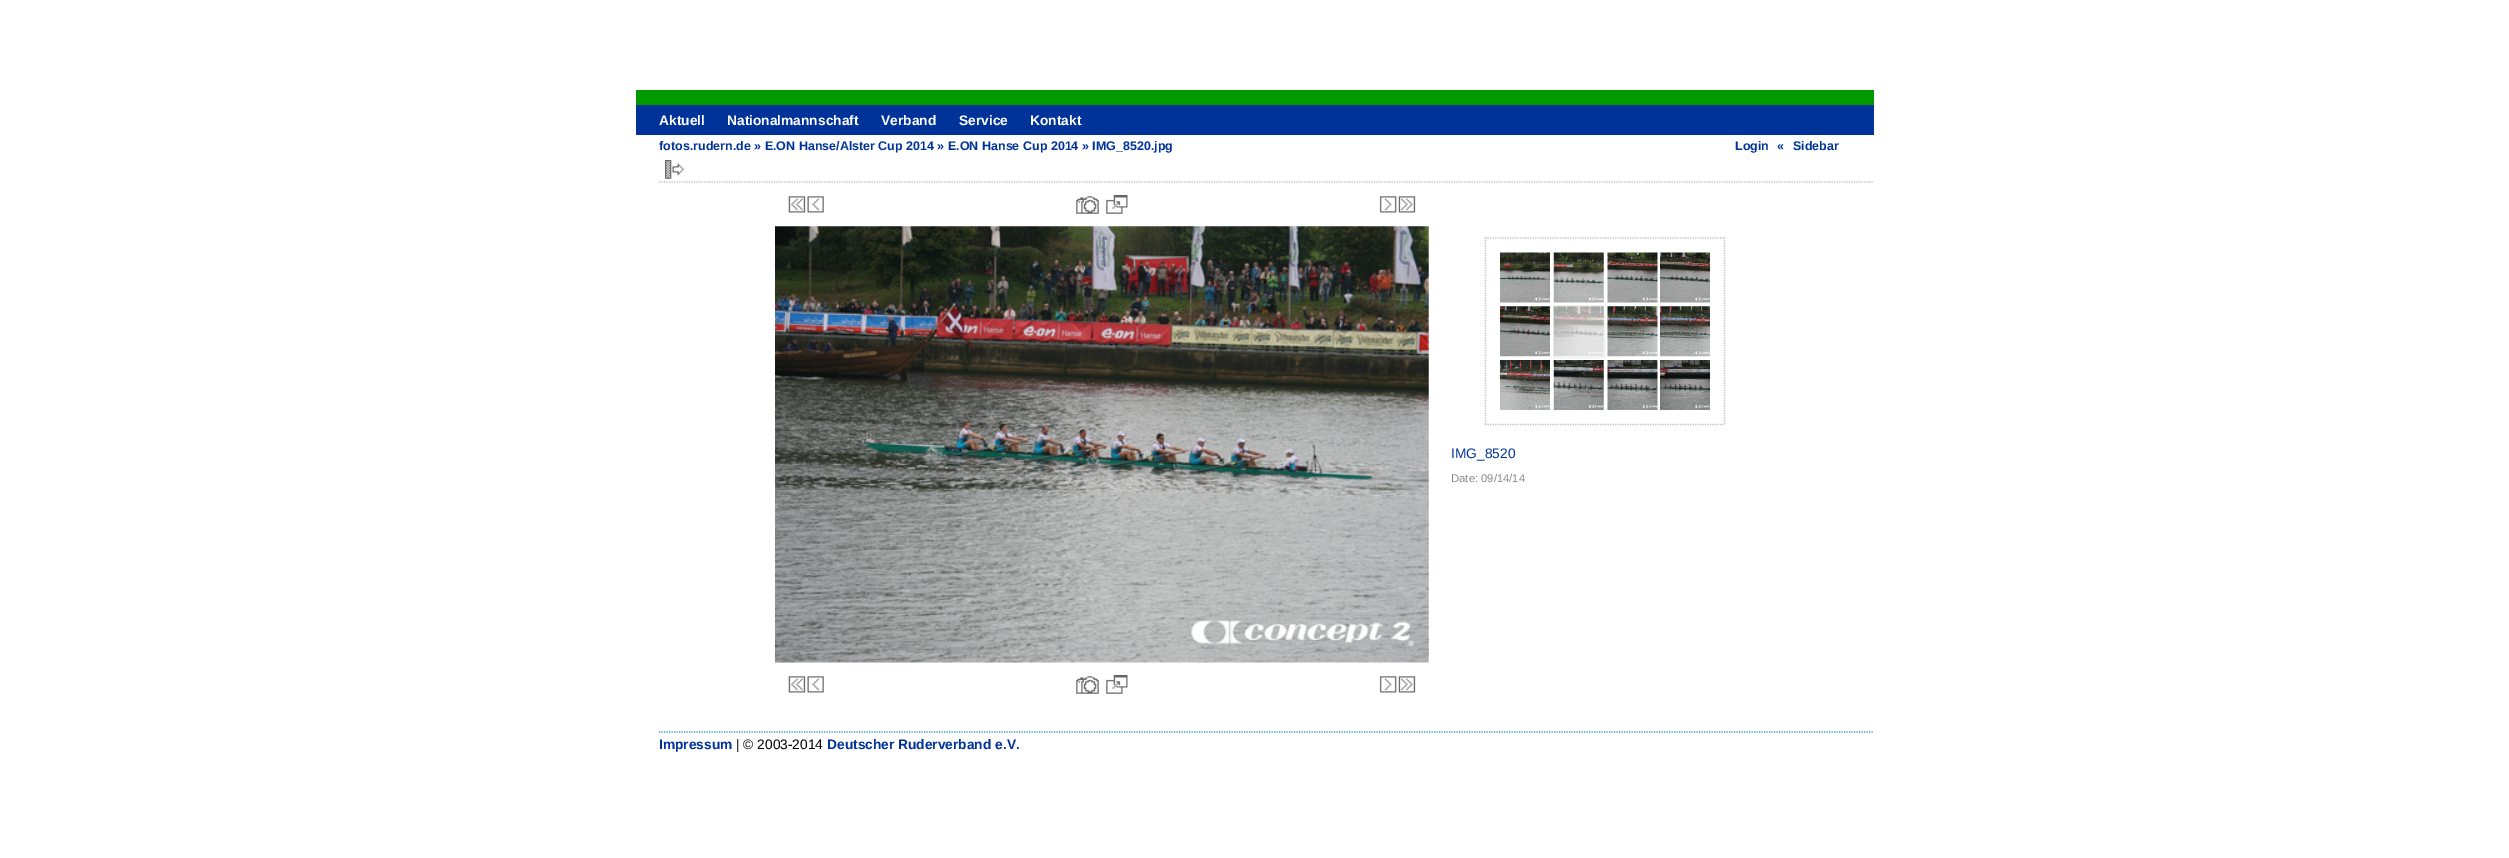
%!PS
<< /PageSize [2509 858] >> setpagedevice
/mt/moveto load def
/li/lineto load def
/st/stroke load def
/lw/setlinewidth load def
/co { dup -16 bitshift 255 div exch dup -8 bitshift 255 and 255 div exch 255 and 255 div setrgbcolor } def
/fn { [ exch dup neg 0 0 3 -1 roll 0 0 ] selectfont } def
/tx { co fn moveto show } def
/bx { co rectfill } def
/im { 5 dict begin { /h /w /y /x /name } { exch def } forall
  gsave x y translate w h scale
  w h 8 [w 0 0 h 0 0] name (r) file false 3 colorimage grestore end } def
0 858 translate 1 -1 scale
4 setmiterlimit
0 0 2509 858 16#FFFFFF bx
636 105 1238 30 16#003399 bx
636 90 1238 15 16#009900 bx
16#C0C0C0 co
1.2 lw
[1.25 1.25] 0 setdash
659 182 mt 1874 182 li st
(media/1.raw) 665 160 19 19 im
(media/2.raw) 788 196 18 17 im
(media/3.raw) 807 196 17 17 im
(media/4.raw) 1076 196 23 18 im
(media/5.raw) 1106 195 22 19 im
(media/6.raw) 1379 196 18 17 im
(media/7.raw) 1398 196 18 17 im
(media/8.raw) 775 226 654 437 im
1485 238 mt 1725 238 li st
1724.5 237.5 mt 1724.5 425 li st
1485 424.5 mt 1725 424.5 li st
1485.5 237.5 mt 1485.5 425 li st
(media/9.raw) 1500 252 50 51 im
(media/10.raw) 1553 252 51 51 im
(media/11.raw) 1607 252 51 51 im
(media/12.raw) 1660 252 50 51 im
(media/13.raw) 1500 306 50 51 im
16#F1F1F1 co
1 lw
[] 0 setdash
1553.5 305.5 51 52 rectstroke
(media/14.raw) 1553 306 51 51 im
(media/15.raw) 1607 306 51 51 im
(media/16.raw) 1660 306 50 51 im
(media/17.raw) 1500 360 50 50 im
(media/18.raw) 1553 360 51 50 im
(media/19.raw) 1607 360 51 50 im
(media/20.raw) 1660 360 50 50 im
(media/2.raw) 788 676 18 17 im
(media/3.raw) 807 676 17 17 im
(media/4.raw) 1076 676 23 18 im
(media/5.raw) 1106 675 22 19 im
(media/6.raw) 1379 676 18 17 im
(media/7.raw) 1398 676 18 17 im
16#3399CC co
1.2 lw
[1.25 1.25] 0 setdash
659 732 mt 1874 732 li st
(Aktuell) 659 125 /LiberationSans-Bold 13.75 16#FFFFFF tx
(Nationalmannschaft) 727 125 /LiberationSans-Bold 13.75 16#FFFFFF tx
(Verband) 881 125 /LiberationSans-Bold 13.75 16#FFFFFF tx
(Service) 959 125 /LiberationSans-Bold 13.75 16#FFFFFF tx
(Kontakt) 1030 125 /LiberationSans-Bold 13.75 16#FFFFFF tx
(fotos.rudern.de » E.ON Hanse/Alster Cup 2014 » E.ON Hanse Cup 2014 » IMG_8520.jpg) 659 150 /LiberationSans-Bold 12.5 16#003399 tx
(Login) 1735 150 /LiberationSans-Bold 12.5 16#003399 tx
(«) 1777 150 /LiberationSans-Bold 12.5 16#003399 tx
(Sidebar) 1793 150 /LiberationSans-Bold 12.5 16#003399 tx
(IMG_8520) 1451 458 /LiberationSans-Regular 13.75 16#003399 tx
(Date: 09/14/14) 1451 482 /LiberationSans-Regular 11.25 16#888888 tx
(Impressum) 659 749 /LiberationSans-Bold 13.75 16#003399 tx
(| © 2003-2014) 736 749 /LiberationSans-Regular 13.75 16#000000 tx
(Deutscher Ruderverband e.V.) 827 749 /LiberationSans-Bold 13.75 16#003399 tx
showpage
